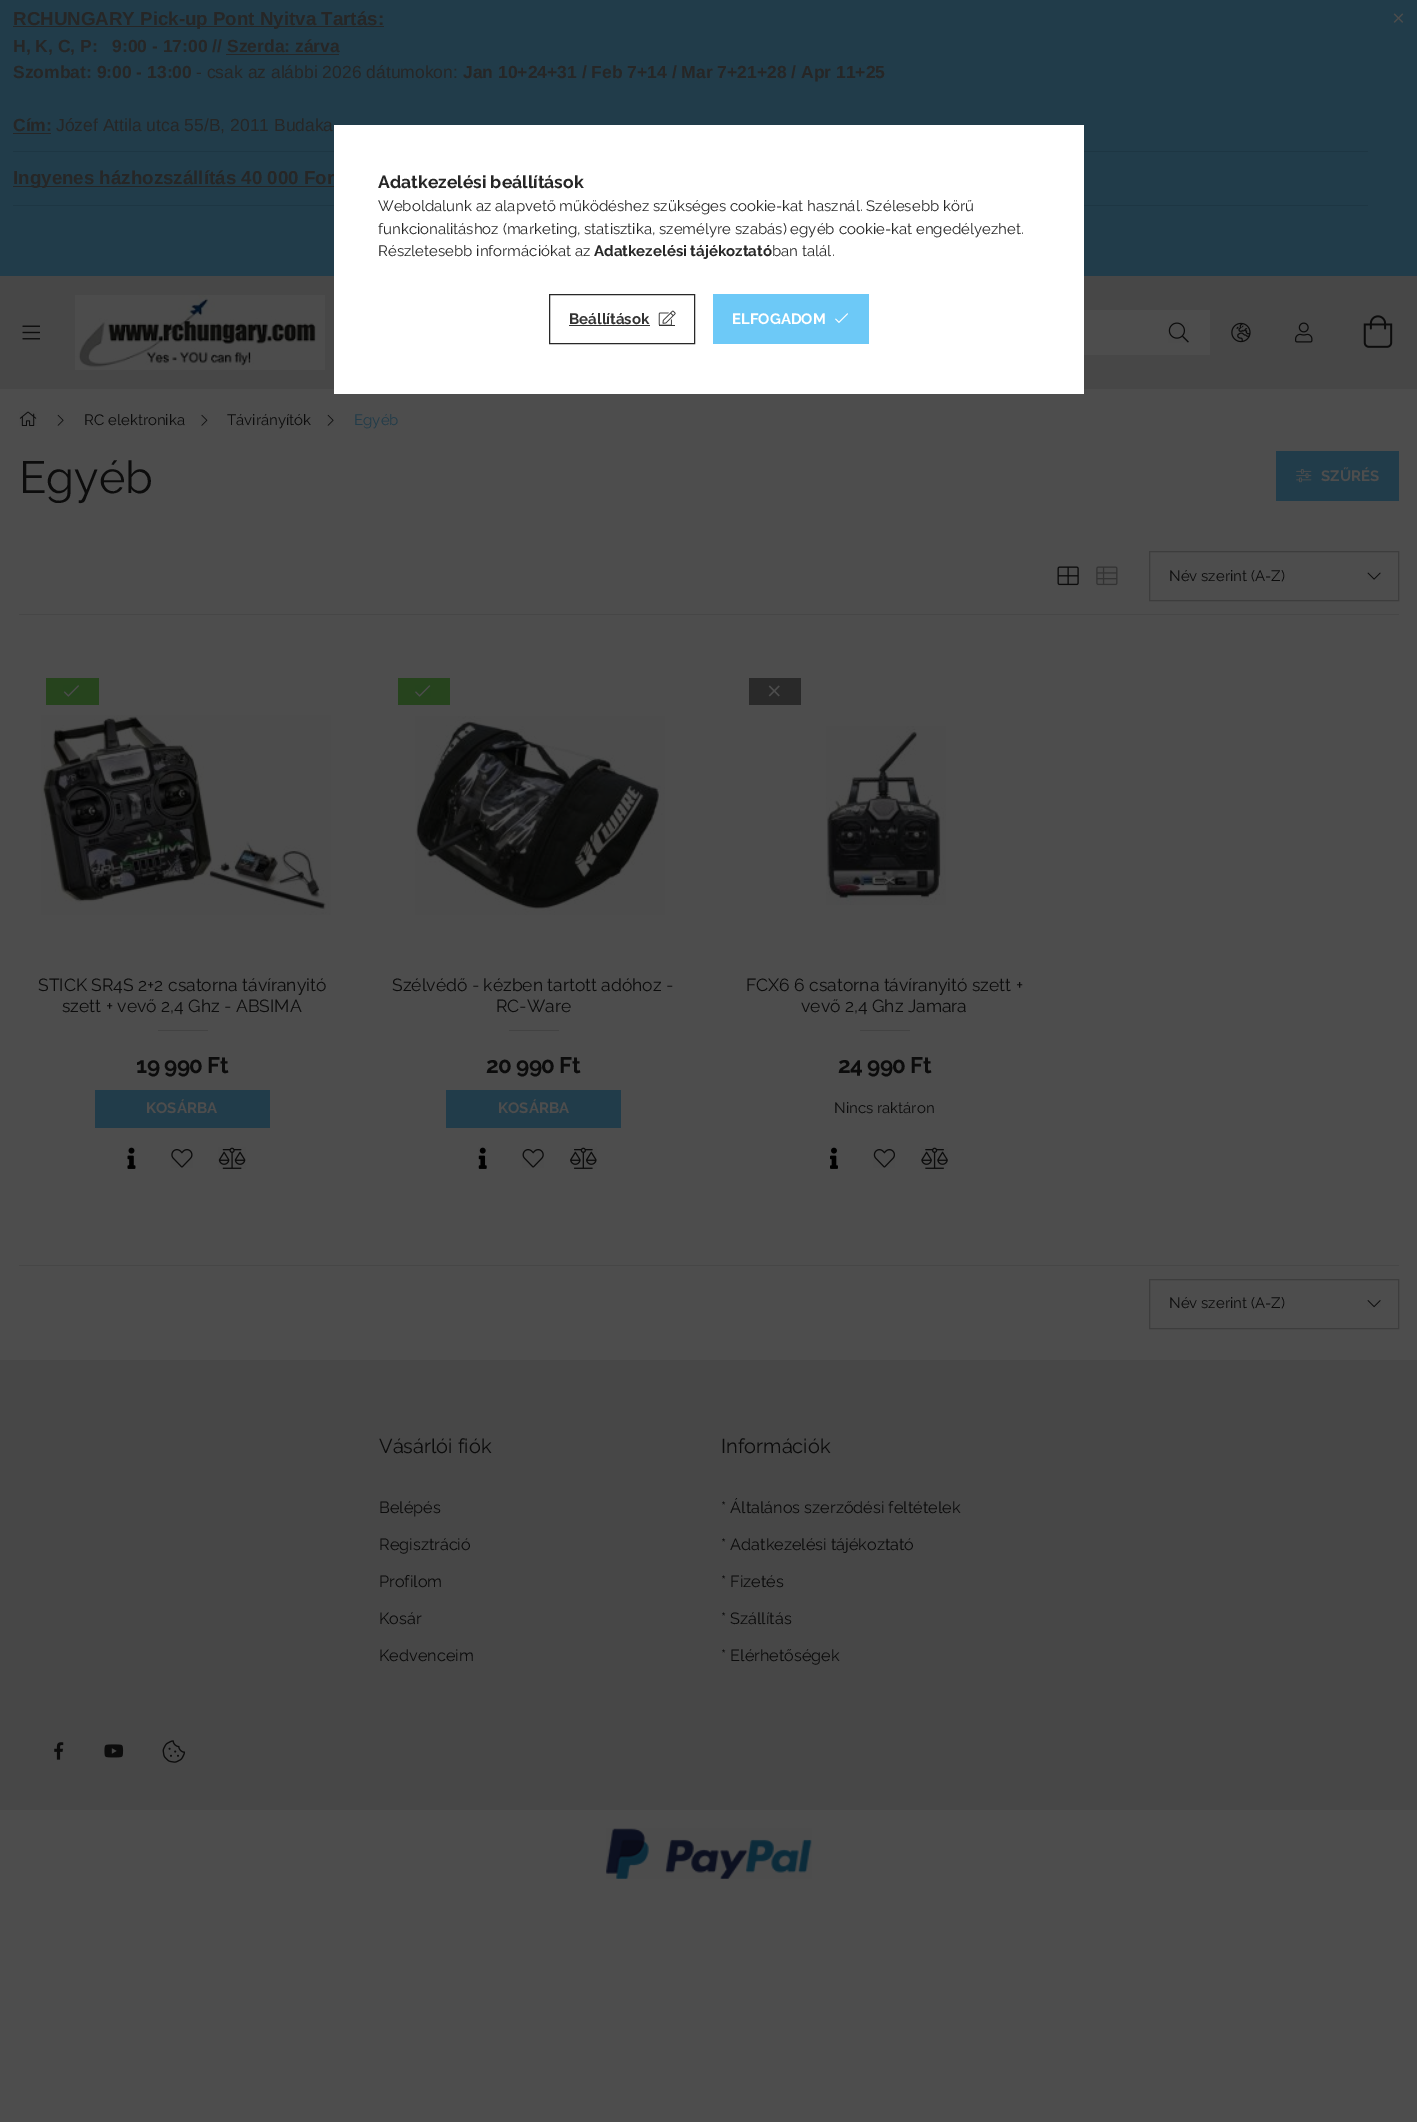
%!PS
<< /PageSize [1417 2122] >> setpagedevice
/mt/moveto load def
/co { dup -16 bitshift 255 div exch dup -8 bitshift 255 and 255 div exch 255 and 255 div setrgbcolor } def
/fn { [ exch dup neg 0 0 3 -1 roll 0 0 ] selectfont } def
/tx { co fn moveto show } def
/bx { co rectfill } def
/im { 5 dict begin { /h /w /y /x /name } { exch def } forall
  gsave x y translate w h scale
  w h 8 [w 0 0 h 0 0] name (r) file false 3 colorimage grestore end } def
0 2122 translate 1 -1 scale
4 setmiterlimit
0 0 1417 2122 16#4D4D4D bx
0 0 1417 276 16#213C4A bx
13 26 371 1 16#262626 bx
226 54 113 1 16#262626 bx
13 133 38 1 16#262626 bx
(media/1.raw) 1393 13 11 10 im
13 151 1355 1 16#1D3643 bx
13 186 321 1 16#262626 bx
13 205 1355 1 16#1D3643 bx
0 276 1417 113 16#474747 bx
(media/2.raw) 22 325 18 15 im
(media/3.raw) 75 295 250 75 im
1084 310 126 45 16#4D4D4D bx
(media/4.raw) 1168 322 21 21 im
(media/5.raw) 1231 322 20 21 im
(media/6.raw) 1295 322 18 21 im
(media/7.raw) 1363 315 30 33 im
(media/8.raw) 19 411 18 15 im
(media/9.raw) 57 414 7 12 im
(media/10.raw) 201 414 7 12 im
(media/9.raw) 327 414 7 12 im
1276 451 123 50 16#213C4A bx
(media/11.raw) 1296 469 16 14 im
19 614 1380 1 16#464646 bx
(media/12.raw) 1057 566 22 20 im
(media/13.raw) 1096 566 22 20 im
16#3D3D3D co
1149.5 551.5 249 49 rectstroke
(media/14.raw) 1367 572 14 8 im
46 678 53 27 16#26431D bx
(media/15.raw) 63 685 16 12 im
(media/16.raw) 41 715 290 200 im
158 1030 50 1 16#424242 bx
95 1090 175 38 16#213C4A bx
(media/17.raw) 127 1147 9 22 im
(media/18.raw) 171 1149 22 19 im
(media/19.raw) 218 1147 28 22 im
398 678 52 27 16#26431D bx
(media/20.raw) 415 685 16 12 im
(media/21.raw) 415 716 250 199 im
509 1030 50 1 16#424242 bx
446 1090 175 38 16#213C4A bx
(media/22.raw) 478 1147 9 22 im
(media/23.raw) 522 1149 22 19 im
(media/24.raw) 570 1147 27 22 im
749 678 52 27 16#292929 bx
(media/25.raw) 768 685 12 12 im
(media/26.raw) 826 726 120 179 im
860 1030 50 1 16#424242 bx
(media/27.raw) 830 1147 8 22 im
(media/28.raw) 873 1149 22 19 im
(media/29.raw) 921 1147 27 22 im
19 1265 1380 1 16#464646 bx
16#3D3D3D co
1149.5 1279.5 249 49 rectstroke
(media/30.raw) 1367 1300 14 8 im
0 1360 1417 450 16#474747 bx
(media/31.raw) 54 1742 10 18 im
(media/32.raw) 104 1744 20 14 im
(media/33.raw) 162 1740 23 23 im
(media/34.raw) 606 1828 206 51 im
334 125 750 269 16#FFFFFF bx
16#282828 co
549.5 294.5 145 49 rectstroke
569 325 81 1 16#333333 bx
(media/35.raw) 658 310 18 15 im
659 325 16 1 16#333333 bx
713 294 156 50 16#6DC9F7 bx
(media/36.raw) 835 313 13 10 im
(RCHUNGARY Pick-up Pont Nyitva Tartás:) 13 25 /LiberationSans-Bold 18.75 16#262626 tx
(H, K, C, P:   9:00 - 17:00 // Szerda: zárva) 13 52 /LiberationSans-Bold 17.5 16#262626 tx
(Szombat: 9:00 - 13:00) 13 78 /LiberationSans-Bold 17.5 16#262626 tx
(- csak az alábbi 2026 dátumokon:) 196 78 /LiberationSans-Regular 17.5 16#262626 tx
(Jan 10+24+31 / Feb 7+14 / Mar 7+21+28 / Apr 11+25) 463 78 /LiberationSans-Bold 17.5 16#262626 tx
(Cím:) 13 131 /LiberationSans-Bold 17.5 16#262626 tx
(Józef Attila utca 55/B, 2011 Budaka) 56 131 /LiberationSans-Regular 17.5 16#262626 tx
(Ingyenes házhozszállítás 40 000 For) 13 184 /LiberationSans-Bold 18.75 16#262626 tx
(RC elektronika) 84 425 /Raleway-Regular 15 16#0C0C0C tx
(Távirányítók) 227 425 /Raleway-Regular 15 16#0C0C0C tx
(Egyéb) 354 425 /Raleway-Regular 15 16#213C4A tx
(Egyéb) 19 493 /Raleway-Regular 45 16#0C0C0C tx
(SZŰRÉS) 1321 481 /Raleway-Bold 15 16#4D4D4D tx
(Név szerint \(A-Z\)) 1169 581 /Raleway-Regular 15 16#0C0C0C tx
(STICK SR4S 2+2 csatorna távíranyitó) 38 991 /Raleway-Regular 17.5 16#0C0C0C tx
(szett + vevő 2,4 Ghz - ABSIMA) 62 1012 /Raleway-Regular 17.5 16#0C0C0C tx
/Raleway-Bold 22.5 fn
136 1073 mt -.6 0 (19 990 Ft) ashow
(KOSÁRBA) 146 1113 /Raleway-Bold 15 16#4D4D4D tx
(Szélvédő - kézben tartott adóhoz -) 392 991 /Raleway-Regular 17.5 16#0C0C0C tx
(RC-Ware) 496 1012 /Raleway-Regular 17.5 16#0C0C0C tx
/Raleway-Bold 22.5 fn
486 1073 mt -.6 0 (20 990 Ft) ashow
(KOSÁRBA) 498 1113 /Raleway-Bold 15 16#4D4D4D tx
(FCX6 6 csatorna távíranyitó szett +) 746 991 /Raleway-Regular 17.5 16#0C0C0C tx
(vevő 2,4 Ghz Jamara) 801 1012 /Raleway-Regular 17.5 16#0C0C0C tx
/Raleway-Bold 22.5 fn
838 1073 mt -.6 0 (24 990 Ft) ashow
(Nincs raktáron) 834 1113 /Raleway-Regular 15 16#0C0C0C tx
(Név szerint \(A-Z\)) 1169 1308 /Raleway-Regular 15 16#0C0C0C tx
(Vásárlói fiók) 379 1453 /Raleway-Regular 20 16#0C0C0C tx
(Belépés) 379 1513 /Raleway-Regular 16.25 16#0C0C0C tx
(Regisztráció) 379 1550 /Raleway-Regular 16.25 16#0C0C0C tx
(Profilom) 379 1587 /Raleway-Regular 16.25 16#0C0C0C tx
(Kosár) 379 1624 /Raleway-Regular 16.25 16#0C0C0C tx
(Kedvenceim) 379 1661 /Raleway-Regular 16.25 16#0C0C0C tx
(Információk) 721 1453 /Raleway-Regular 20 16#0C0C0C tx
(* Általános szerződési feltételek) 721 1513 /Raleway-Regular 16.25 16#0C0C0C tx
(* Adatkezelési tájékoztató) 721 1550 /Raleway-Regular 16.25 16#0C0C0C tx
(* Fizetés) 721 1587 /Raleway-Regular 16.25 16#0C0C0C tx
(* Szállítás) 721 1624 /Raleway-Regular 16.25 16#0C0C0C tx
(* Elérhetőségek) 721 1661 /Raleway-Regular 16.25 16#0C0C0C tx
(Adatkezelési beállítások) 378 188 /Raleway-Bold 17.5 16#262626 tx
(Weboldalunk az alapvető működéshez szükséges cookie-kat használ. Szélesebb körű) 378 211 /Raleway-Regular 15 16#262626 tx
(funkcionalitáshoz \(marketing, statisztika, személyre szabás\) egyéb cookie-kat engedélyezhet.) 378 234 /Raleway-Regular 15 16#262626 tx
(Részletesebb információkat az) 378 256 /Raleway-Regular 15 16#262626 tx
(Adatkezelési tájékoztató) 594 256 /Raleway-Bold 15 16#262626 tx
(ban talál.) 772 256 /Raleway-Regular 15 16#262626 tx
(Beállítások) 569 324 /Raleway-Bold 15 16#333333 tx
(ELFOGADOM) 732 324 /Raleway-Bold 15 16#FFFFFF tx
showpage
